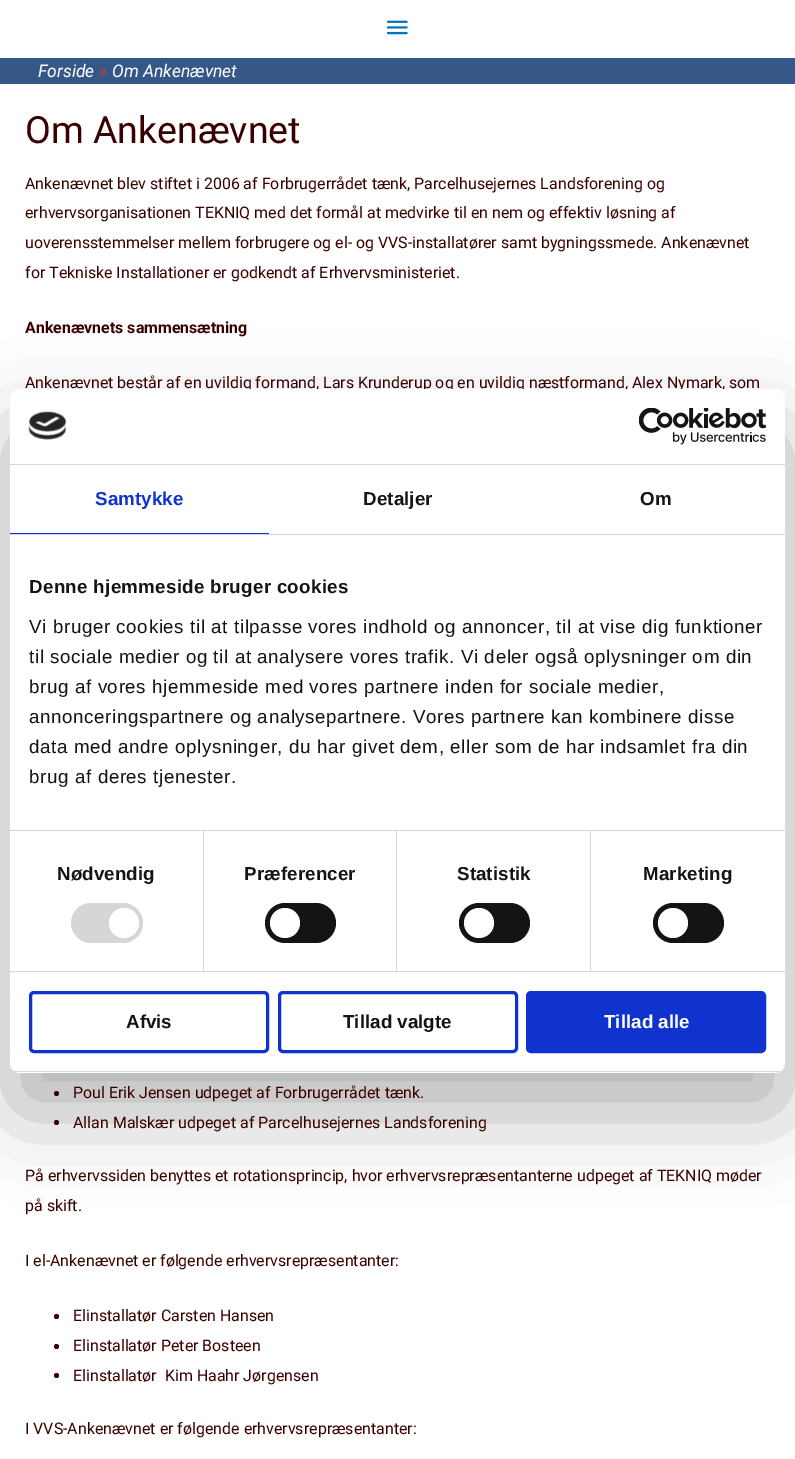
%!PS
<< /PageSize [795 1459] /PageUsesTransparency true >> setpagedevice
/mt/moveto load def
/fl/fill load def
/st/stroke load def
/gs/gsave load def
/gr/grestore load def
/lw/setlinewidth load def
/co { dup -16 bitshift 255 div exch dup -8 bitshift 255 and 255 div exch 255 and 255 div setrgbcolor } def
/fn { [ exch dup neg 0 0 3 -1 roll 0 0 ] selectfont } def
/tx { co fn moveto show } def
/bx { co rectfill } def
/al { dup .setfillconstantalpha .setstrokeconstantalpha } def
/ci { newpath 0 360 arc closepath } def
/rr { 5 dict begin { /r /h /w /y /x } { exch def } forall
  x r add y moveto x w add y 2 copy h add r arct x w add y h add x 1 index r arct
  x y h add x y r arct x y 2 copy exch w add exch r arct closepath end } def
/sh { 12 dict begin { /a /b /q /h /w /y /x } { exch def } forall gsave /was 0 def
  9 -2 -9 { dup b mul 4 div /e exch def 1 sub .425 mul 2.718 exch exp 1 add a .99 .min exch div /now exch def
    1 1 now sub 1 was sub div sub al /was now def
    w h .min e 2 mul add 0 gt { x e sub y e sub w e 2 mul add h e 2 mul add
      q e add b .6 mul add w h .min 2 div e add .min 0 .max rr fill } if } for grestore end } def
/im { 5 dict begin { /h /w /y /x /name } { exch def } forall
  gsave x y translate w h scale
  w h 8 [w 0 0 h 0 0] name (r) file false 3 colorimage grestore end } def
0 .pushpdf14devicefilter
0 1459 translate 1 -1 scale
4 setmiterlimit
0 0 795 1459 16#FFFFFF bx
(media/1.raw) 387 20 21 15 im
0 58 795 26 16#365888 bx
16#3A0000 co
56.5 1093.5 2.5 ci fl
56.5 1122.5 2.5 ci fl
56.5 1316.5 2.5 ci fl
56.5 1346.5 2.5 ci fl
56.5 1375.5 2.5 ci fl
16#000000 co
10 429 775 684 10 42.5 .3 sh
(Forside) 38 77 /Roboto-Italic 17.5 16#FFFFFF tx
(») 99 77 /Roboto-Italic 17.5 16#DD3333 tx
(Om Ankenævnet) 112 77 /Roboto-Italic 17.5 16#FFFFFF tx
(Om Ankenævnet) 25 143 /Roboto-Regular 37.5 16#3A0000 tx
(Ankenævnet blev stiftet i 2006 af Forbrugerrådet tænk, Parcelhusejernes Landsforening og) 25 189 /Roboto-Regular 15.95 16#3A0000 tx
(erhvervsorganisationen TEKNIQ med det formål at medvirke til en nem og effektiv løsning af) 25 218 /Roboto-Regular 15.95 16#3A0000 tx
(uoverensstemmelser mellem forbrugere og el- og VVS-installatører samt bygningssmede. Ankenævnet) 25 248 /Roboto-Regular 15.95 16#3A0000 tx
(for Tekniske Installationer er godkendt af Erhvervsministeriet.) 25 278 /Roboto-Regular 15.95 16#3A0000 tx
(Ankenævnets sammensætning) 25 333 /Roboto-Bold 15.95 16#3A0000 tx
(Ankenævnet består af en uvildig formand, Lars Krunderup og en uvildig næstformand, Alex Nymark, som) 25 388 /Roboto-Regular 15.95 16#3A0000 tx
(Poul Erik Jensen udpeget af Forbrugerrådet tænk.) 73 1098 /Roboto-Regular 15.95 16#3A0000 tx
(Allan Malskær udpeget af Parcelhusejernes Landsforening) 73 1128 /Roboto-Regular 15.95 16#3A0000 tx
(På erhvervssiden benyttes et rotationsprincip, hvor erhvervsrepræsentanterne udpeget af TEKNIQ møder) 25 1181 /Roboto-Regular 15.95 16#3A0000 tx
(på skift.) 25 1211 /Roboto-Regular 15.95 16#3A0000 tx
(I el-Ankenævnet er følgende erhvervsrepræsentanter:) 25 1266 /Roboto-Regular 15.95 16#3A0000 tx
(Elinstallatør Carsten Hansen) 73 1321 /Roboto-Regular 15.95 16#3A0000 tx
(Elinstallatør Peter Bosteen) 73 1351 /Roboto-Regular 15.95 16#3A0000 tx
(Elinstallatør  Kim Haahr Jørgensen) 73 1381 /Roboto-Regular 15.95 16#3A0000 tx
(I VVS-Ankenævnet er følgende erhvervsrepræsentanter:) 25 1434 /Roboto-Regular 15.95 16#3A0000 tx
16#FFFFFF co
10 389 775 684 10 rr fl
10 464 775 1 16#D6D6D6 bx
(media/2.raw) 28 411 39 29 im
(media/3.raw) 639 408 127 37 im
10 534 775 1 16#D6D6D6 bx
10 533 259 1 16#1032CF bx
/LiberationSans-Bold 18.75 fn
95 505 mt .1 0 (Samtykke) ashow
16#141414 co
363 505 mt .1 0 (Detaljer) ashow
640 505 mt .1 0 (Om) ashow
10 830 775 1 16#D6D6D6 bx
16#141414 co
29 593 mt .3 0 (Denne hjemmeside bruger cookies) ashow
/LiberationSans-Regular 18.75 fn
29 633 mt .62 0 (Vi bruger cookies til at tilpasse vores indhold og annoncer, til at vise dig funktioner) ashow
29 663 mt .62 0 (til sociale medier og til at analysere vores trafik. Vi deler også oplysninger om din) ashow
29 693 mt .62 0 (brug af vores hjemmeside med vores partnere inden for sociale medier,) ashow
29 723 mt .62 0 (annonceringspartnere og analysepartnere. Vores partnere kan kombinere disse) ashow
29 753 mt .62 0 (data med andre oplysninger, du har givet dem, eller som de har indsamlet fra din) ashow
29 783 mt .62 0 (brug af deres tjenester.) ashow
10 971 775 1 16#D6D6D6 bx
203 831 1 140 16#D6D6D6 bx
/LiberationSans-Bold 18.75 fn
16#141414 co
57 880 mt .1 0 (Nødvendig) ashow
16#D6D6D6 co
71 903 72 40 20 rr fl
16#FFFFFF co
124 923 15 ci fl
396 831 1 140 16#D6D6D6 bx
16#141414 co
244 880 mt .1 0 (Præferencer) ashow
265 903 71 40 20 rr fl
16#FFFFFF co
285 923 15 ci fl
590 831 1 140 16#D6D6D6 bx
16#141414 co
457 880 mt .1 0 (Statistik) ashow
459 903 71 40 20 rr fl
16#FFFFFF co
479 923 15 ci fl
16#141414 co
643 880 mt .1 0 (Marketing) ashow
653 903 71 40 20 rr fl
16#FFFFFF co
673 923 15 ci fl
gs
10 389 775 684 10 rr clip newpath
10 1071 775 1 16#D6D6D6 bx
gr
16#1032CF co
3 lw
30.5 992.5 237 59 3.5 rr st
(Afvis) 126 1028 /LiberationSans-Bold 18.75 16#141414 tx
16#1032CF co
279.5 992.5 237 59 3.5 rr st
(Tillad valgte) 343 1028 /LiberationSans-Bold 18.75 16#141414 tx
16#1032CF co
527.5 992.5 237 59 3.5 rr gs fl gr
st
(Tillad alle) 604 1028 /LiberationSans-Bold 18.75 16#FFFFFF tx
.poppdf14devicefilter showpage
